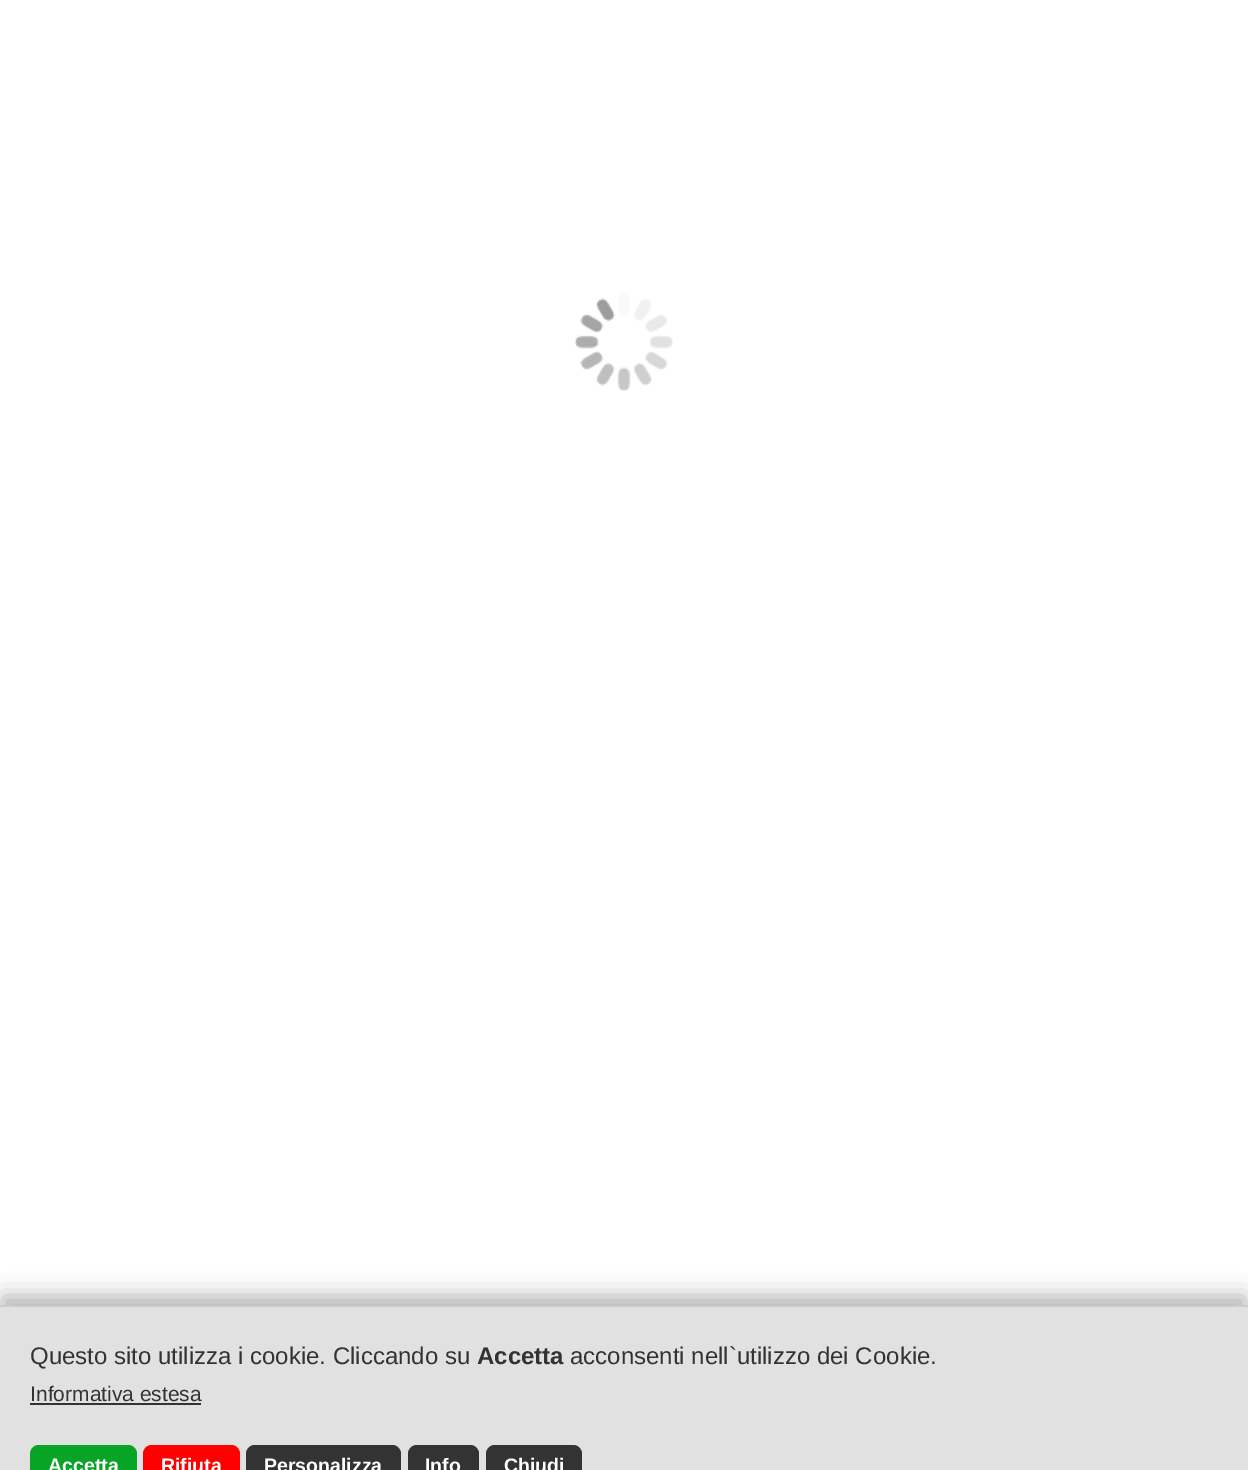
%!PS
<< /PageSize [1248 1470] /PageUsesTransparency true >> setpagedevice
/fl/fill load def
/co { dup -16 bitshift 255 div exch dup -8 bitshift 255 and 255 div exch 255 and 255 div setrgbcolor } def
/fn { [ exch dup neg 0 0 3 -1 roll 0 0 ] selectfont } def
/tx { co fn moveto show } def
/bx { co rectfill } def
/al { dup .setfillconstantalpha .setstrokeconstantalpha } def
/rr { 5 dict begin { /r /h /w /y /x } { exch def } forall
  x r add y moveto x w add y 2 copy h add r arct x w add y h add x 1 index r arct
  x y h add x y r arct x y 2 copy exch w add exch r arct closepath end } def
/sh { 12 dict begin { /a /b /q /h /w /y /x } { exch def } forall gsave /was 0 def
  9 -2 -9 { dup b mul 4 div /e exch def 1 sub .425 mul 2.718 exch exp 1 add a .99 .min exch div /now exch def
    1 1 now sub 1 was sub div sub al /was now def
    w h .min e 2 mul add 0 gt { x e sub y e sub w e 2 mul add h e 2 mul add
      q e add b .6 mul add w h .min 2 div e add .min 0 .max rr fill } if } for grestore end } def
/im { 5 dict begin { /h /w /y /x /name } { exch def } forall
  gsave x y translate w h scale
  w h 8 [w 0 0 h 0 0] name (r) file false 3 colorimage grestore end } def
0 .pushpdf14devicefilter
0 1470 translate 1 -1 scale
4 setmiterlimit
0 0 1248 1470 16#FFFFFF bx
(media/1.raw) 574 294 99 98 im
16#737373 co
3 1296 1242 159 0 11 .55 sh
0 1307 1248 163 16#E1E1E1 bx
0 1305 1248 2 16#CCCCCC bx
30 1403 171 2 16#333333 bx
16#07A425 co
30 1445 107 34 9 rr fl
16#FF0000 co
143 1445 97 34 9 rr fl
16#333333 co
246 1445 155 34 9 rr fl
408 1445 71 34 9 rr fl
486 1445 96 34 9 rr fl
(Questo sito utilizza i cookie. Cliccando su) 30 1364 /LiberationSans-Regular 24 16#333333 tx
(Accetta) 477 1364 /LiberationSans-Bold 24 16#333333 tx
(acconsenti nell`utilizzo dei Cookie.) 570 1364 /LiberationSans-Regular 24 16#333333 tx
(Informativa estesa) 30 1401 /LiberationSans-Regular 21 16#333333 tx
(Accetta) 48 1472 /LiberationSans-Bold 19.5 16#FFFFFF tx
(Rifiuta) 161 1472 /LiberationSans-Bold 19.5 16#FFFFFF tx
(Personalizza) 264 1472 /LiberationSans-Bold 19.5 16#FFFFFF tx
(Info) 425 1472 /LiberationSans-Bold 19.5 16#FFFFFF tx
(Chiudi) 504 1472 /LiberationSans-Bold 19.5 16#FFFFFF tx
.poppdf14devicefilter showpage
